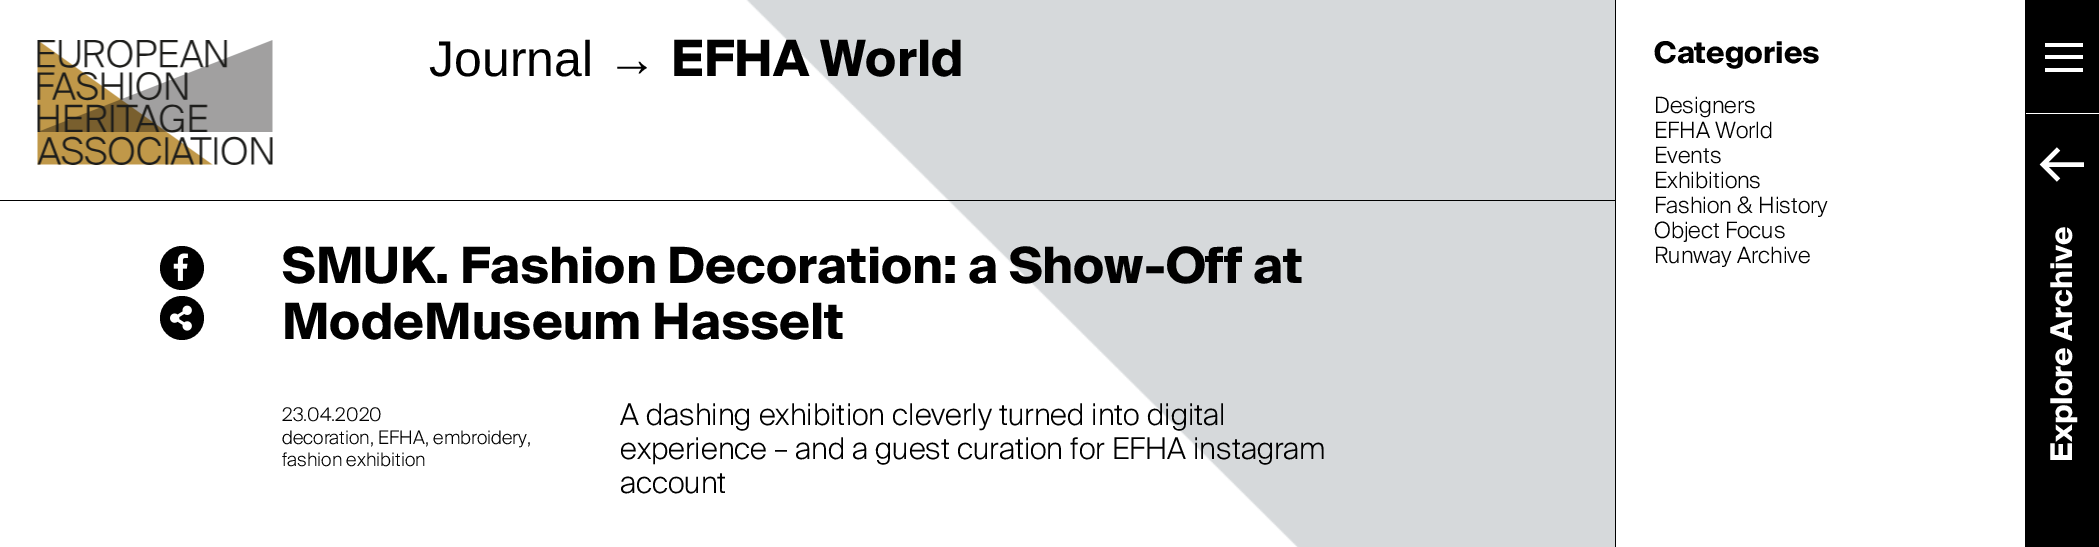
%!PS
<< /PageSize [2099 547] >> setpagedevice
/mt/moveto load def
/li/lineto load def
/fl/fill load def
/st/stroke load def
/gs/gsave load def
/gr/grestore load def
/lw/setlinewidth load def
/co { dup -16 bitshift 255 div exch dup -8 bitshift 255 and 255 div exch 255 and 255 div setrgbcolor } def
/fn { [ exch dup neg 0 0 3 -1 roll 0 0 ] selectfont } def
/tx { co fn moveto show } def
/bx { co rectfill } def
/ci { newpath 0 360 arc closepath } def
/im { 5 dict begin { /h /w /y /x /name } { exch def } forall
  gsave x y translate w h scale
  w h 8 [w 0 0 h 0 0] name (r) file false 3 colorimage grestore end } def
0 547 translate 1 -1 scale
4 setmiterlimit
0 0 2099 547 16#FFFFFF bx
(media/1.raw) 746 0 869 547 im
(media/2.raw) 37 40 236 125 im
2025 0 74 547 16#000000 bx
2045 43 38 4 16#FFFFFF bx
2045 55 38 4 16#FFFFFF bx
2045 68 38 4 16#FFFFFF bx
2026 113 73 1 16#FFFFFF bx
4.4 lw
2043.5 164.5 mt 2084 164.5 li 2058.5 149 mt 2043 164.5 li 2058.5 180 li st
1615 0 1 547 16#000000 bx
0 200 1615 1 16#000000 bx
182 268 22 ci fl
(media/3.raw) 173 253 15 28 im
182 318 22 ci fl
(media/4.raw) 170 305 22 26 im
(Journal →) 429 76 /LiberationSans-Regular 50 16#000000 tx
(EFHA World) 671 76 /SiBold-Bold 50 16#000000 tx
/SiBold-Bold 30 fn
16#FFFFFF co
gs 2072 462 translate -90 rotate 0 0 mt (Explore Archive) show gr
(Categories) 1654 63 /SiBold-Bold 30 16#000000 tx
(Designers) 1654 113 /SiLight-Light 22.5 16#000000 tx
(EFHA World) 1654 138 /SiLight-Light 22.5 16#000000 tx
(Events) 1654 163 /SiLight-Light 22.5 16#000000 tx
(Exhibitions) 1654 188 /SiLight-Light 22.5 16#000000 tx
(Fashion & History) 1654 213 /SiLight-Light 22.5 16#000000 tx
(Object Focus) 1654 238 /SiLight-Light 22.5 16#000000 tx
(Runway Archive) 1654 263 /SiLight-Light 22.5 16#000000 tx
(SMUK. Fashion Decoration: a Show-Off at) 282 283 /SiBold-Bold 50 16#000000 tx
(ModeMuseum Hasselt) 282 339 /SiBold-Bold 50 16#000000 tx
(23.04.2020) 282 421 /SiLight-Light 18.75 16#000000 tx
(decoration, EFHA, embroidery,) 282 444 /SiLight-Light 18.75 16#000000 tx
(fashion exhibition) 282 466 /SiLight-Light 18.75 16#000000 tx
(A dashing exhibition cleverly turned into digital) 620 425 /SiLight-Light 30 16#000000 tx
(experience – and a guest curation for EFHA instagram) 620 459 /SiLight-Light 30 16#000000 tx
(account) 620 493 /SiLight-Light 30 16#000000 tx
showpage
